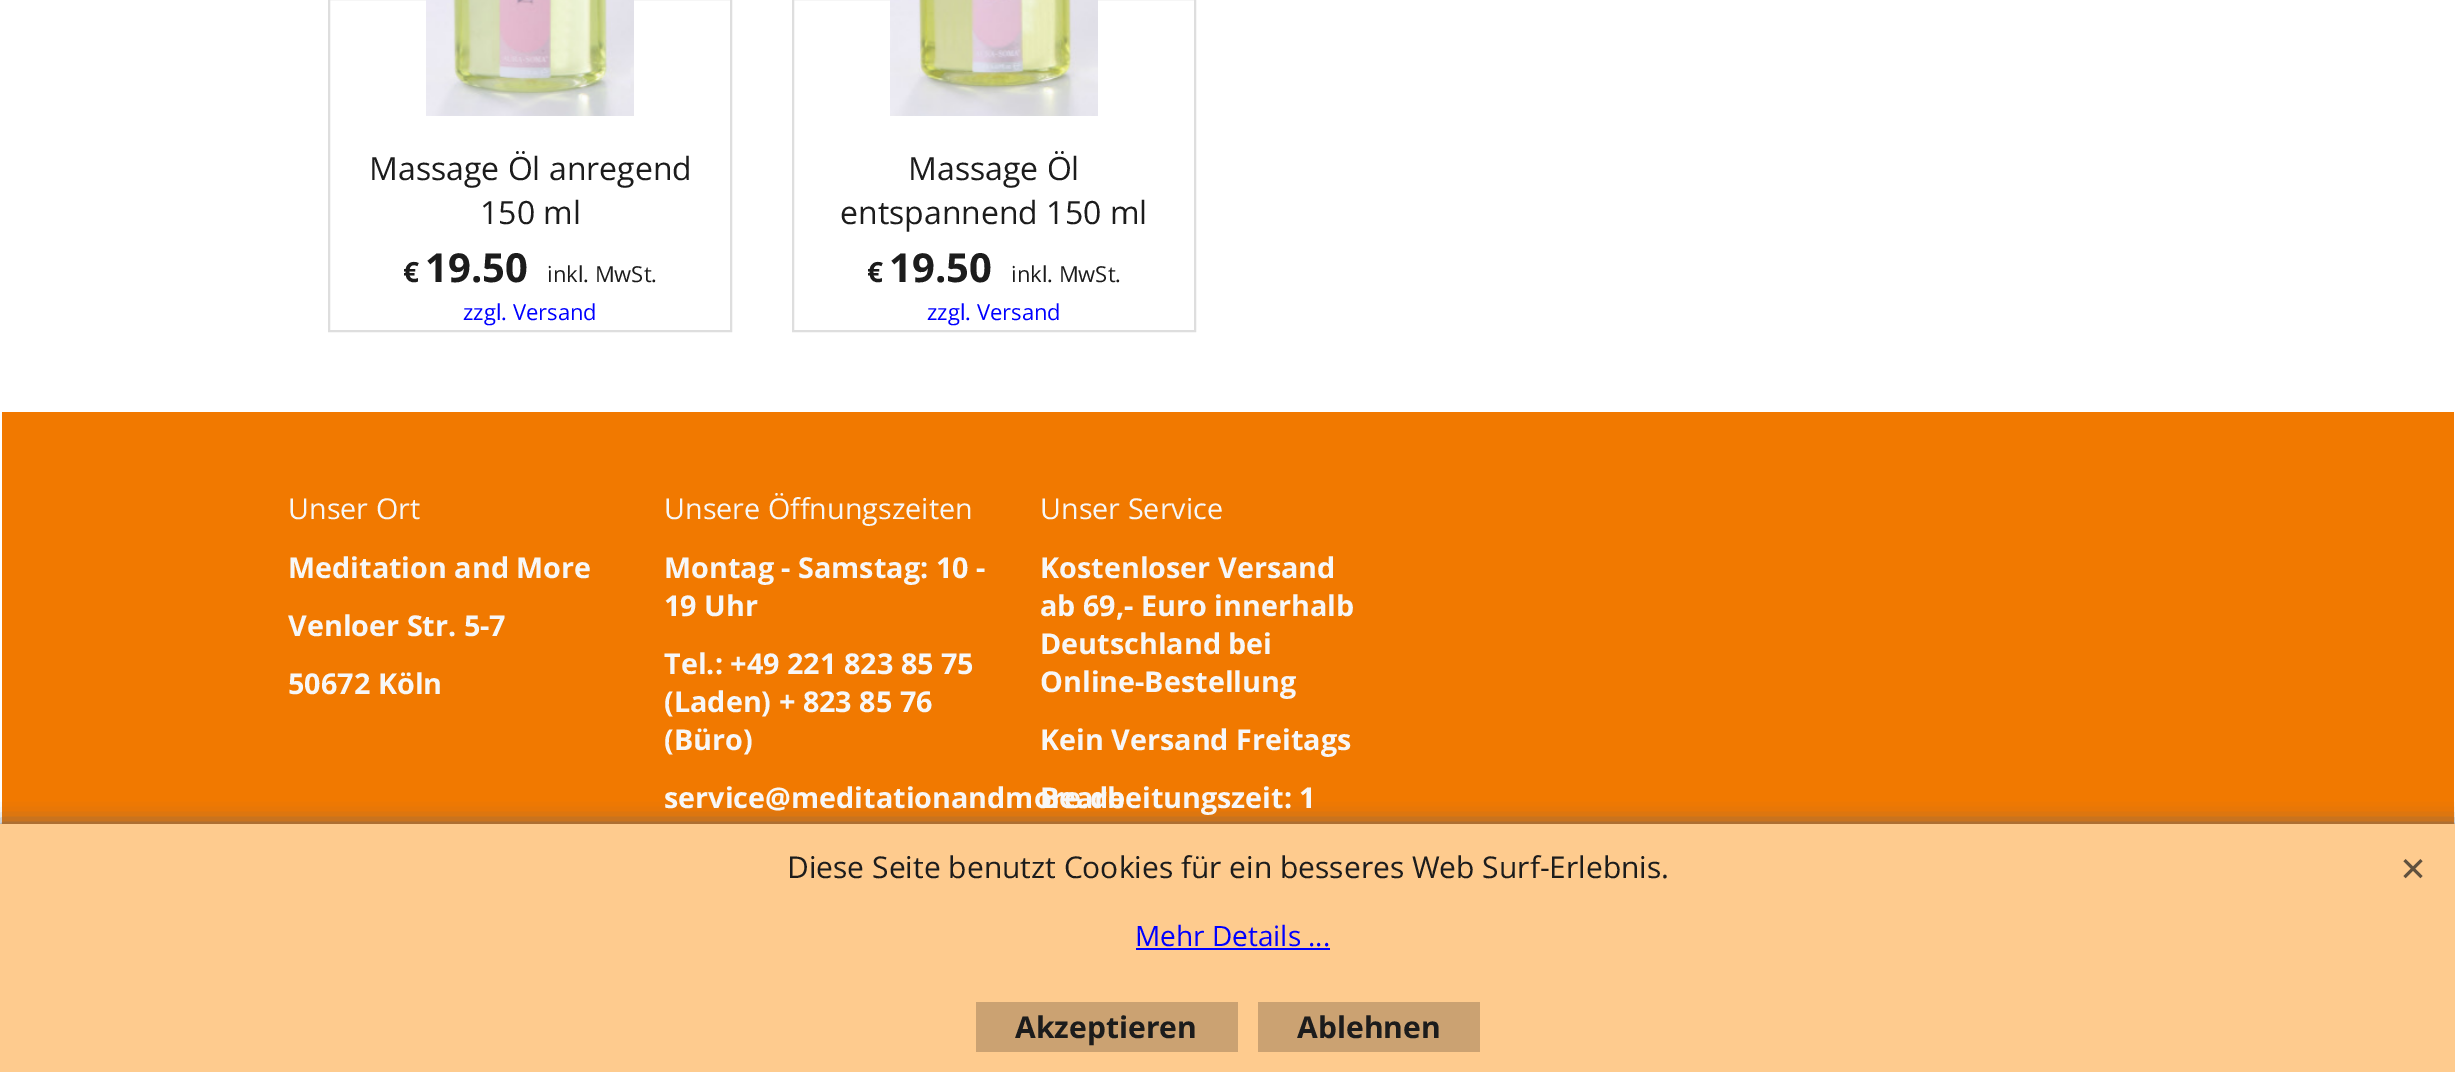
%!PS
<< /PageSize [2455 1072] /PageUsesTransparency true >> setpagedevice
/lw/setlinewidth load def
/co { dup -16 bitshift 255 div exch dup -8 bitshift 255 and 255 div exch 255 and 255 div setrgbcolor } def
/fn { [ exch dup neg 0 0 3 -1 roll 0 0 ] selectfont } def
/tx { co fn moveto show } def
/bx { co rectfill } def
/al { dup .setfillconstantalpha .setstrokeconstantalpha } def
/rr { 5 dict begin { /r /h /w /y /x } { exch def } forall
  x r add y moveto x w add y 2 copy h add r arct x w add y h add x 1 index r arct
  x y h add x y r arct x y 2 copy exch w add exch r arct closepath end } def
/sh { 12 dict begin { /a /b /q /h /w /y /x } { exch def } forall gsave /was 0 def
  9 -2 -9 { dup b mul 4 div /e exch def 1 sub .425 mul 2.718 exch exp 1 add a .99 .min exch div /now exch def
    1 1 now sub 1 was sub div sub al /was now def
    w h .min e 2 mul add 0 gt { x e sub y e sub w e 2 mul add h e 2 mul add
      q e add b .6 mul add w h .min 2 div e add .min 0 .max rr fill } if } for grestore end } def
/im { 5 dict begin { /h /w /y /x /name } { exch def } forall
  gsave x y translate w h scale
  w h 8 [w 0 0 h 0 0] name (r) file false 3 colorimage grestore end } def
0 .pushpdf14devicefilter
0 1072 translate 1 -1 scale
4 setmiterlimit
0 0 2455 1072 16#FFFFFF bx
16#DEDEDE co
2 lw
329 -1 402 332 rectstroke
(media/1.raw) 426 0 208 116 im
793 -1 402 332 rectstroke
(media/2.raw) 890 0 208 116 im
2 412 2452 412 16#F17900 bx
16#666666 co
0 824 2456 248 0 10 1 sh
0 824 2455 248 16#FECB8E bx
1136 948 194 2 16#0000FF bx
(media/3.raw) 2403 859 20 20 im
976 1002 262 50 16#CBA272 bx
1258 1002 222 50 16#CBA272 bx
(Massage Öl anregend) 369 180 /OpenSans-Regular 32 16#1C1C1C tx
(150 ml) 480 224 /OpenSans-Regular 32 16#1C1C1C tx
(€) 403 282 /OpenSans-Bold 28 16#1C1C1C tx
(19.50) 425 282 /OpenSans-Bold 40 16#1C1C1C tx
(inkl. MwSt.) 547 282 /OpenSans-Regular 22 16#1C1C1C tx
(zzgl. Versand) 463 320 /OpenSans-Regular 22 16#0000FF tx
(Massage Öl) 908 180 /OpenSans-Regular 32 16#1C1C1C tx
(entspannend 150 ml) 840 224 /OpenSans-Regular 32 16#1C1C1C tx
(€) 867 282 /OpenSans-Bold 28 16#1C1C1C tx
(19.50) 889 282 /OpenSans-Bold 40 16#1C1C1C tx
(inkl. MwSt.) 1011 282 /OpenSans-Regular 22 16#1C1C1C tx
(zzgl. Versand) 927 320 /OpenSans-Regular 22 16#0000FF tx
(Unser Ort) 288 519 /OpenSans-Regular 28.75 16#F7F7F7 tx
(Meditation and More) 288 578 /OpenSans-Bold 28.75 16#F7F7F7 tx
(Venloer Str. 5-7) 288 636 /OpenSans-Bold 28.75 16#F7F7F7 tx
(50672 Köln) 288 694 /OpenSans-Bold 28.75 16#F7F7F7 tx
(Unsere Öffnungszeiten) 664 519 /OpenSans-Regular 28.75 16#F7F7F7 tx
(Montag - Samstag: 10 -) 664 578 /OpenSans-Bold 28.75 16#F7F7F7 tx
(19 Uhr) 664 616 /OpenSans-Bold 28.75 16#F7F7F7 tx
(Tel.: +49 221 823 85 75) 664 674 /OpenSans-Bold 28.75 16#F7F7F7 tx
(\(Laden\) + 823 85 76) 664 712 /OpenSans-Bold 28.75 16#F7F7F7 tx
(\(Büro\)) 664 750 /OpenSans-Bold 28.75 16#F7F7F7 tx
(service@meditationandmore.de) 664 808 /OpenSans-Bold 28.75 16#F7F7F7 tx
(Unser Service) 1040 519 /OpenSans-Regular 28.75 16#F7F7F7 tx
(Kostenloser Versand) 1040 578 /OpenSans-Bold 28.75 16#F7F7F7 tx
(ab 69,- Euro innerhalb) 1040 616 /OpenSans-Bold 28.75 16#F7F7F7 tx
(Deutschland bei) 1040 654 /OpenSans-Bold 28.75 16#F7F7F7 tx
(Online-Bestellung) 1040 692 /OpenSans-Bold 28.75 16#F7F7F7 tx
(Kein Versand Freitags) 1040 750 /OpenSans-Bold 28.75 16#F7F7F7 tx
(Bearbeitungszeit: 1) 1040 808 /OpenSans-Bold 28.75 16#F7F7F7 tx
(Diese Seite benutzt Cookies für ein besseres Web Surf-Erlebnis.) 787 878 /OpenSans-Regular 30 16#1C1C1C tx
(Mehr Details ...) 1135 946 /OpenSans-Regular 28 16#0000FF tx
(Akzeptieren) 1015 1038 /OpenSans-Bold 30 16#1C1C1C tx
(Ablehnen) 1297 1038 /OpenSans-Bold 30 16#1C1C1C tx
.poppdf14devicefilter showpage
